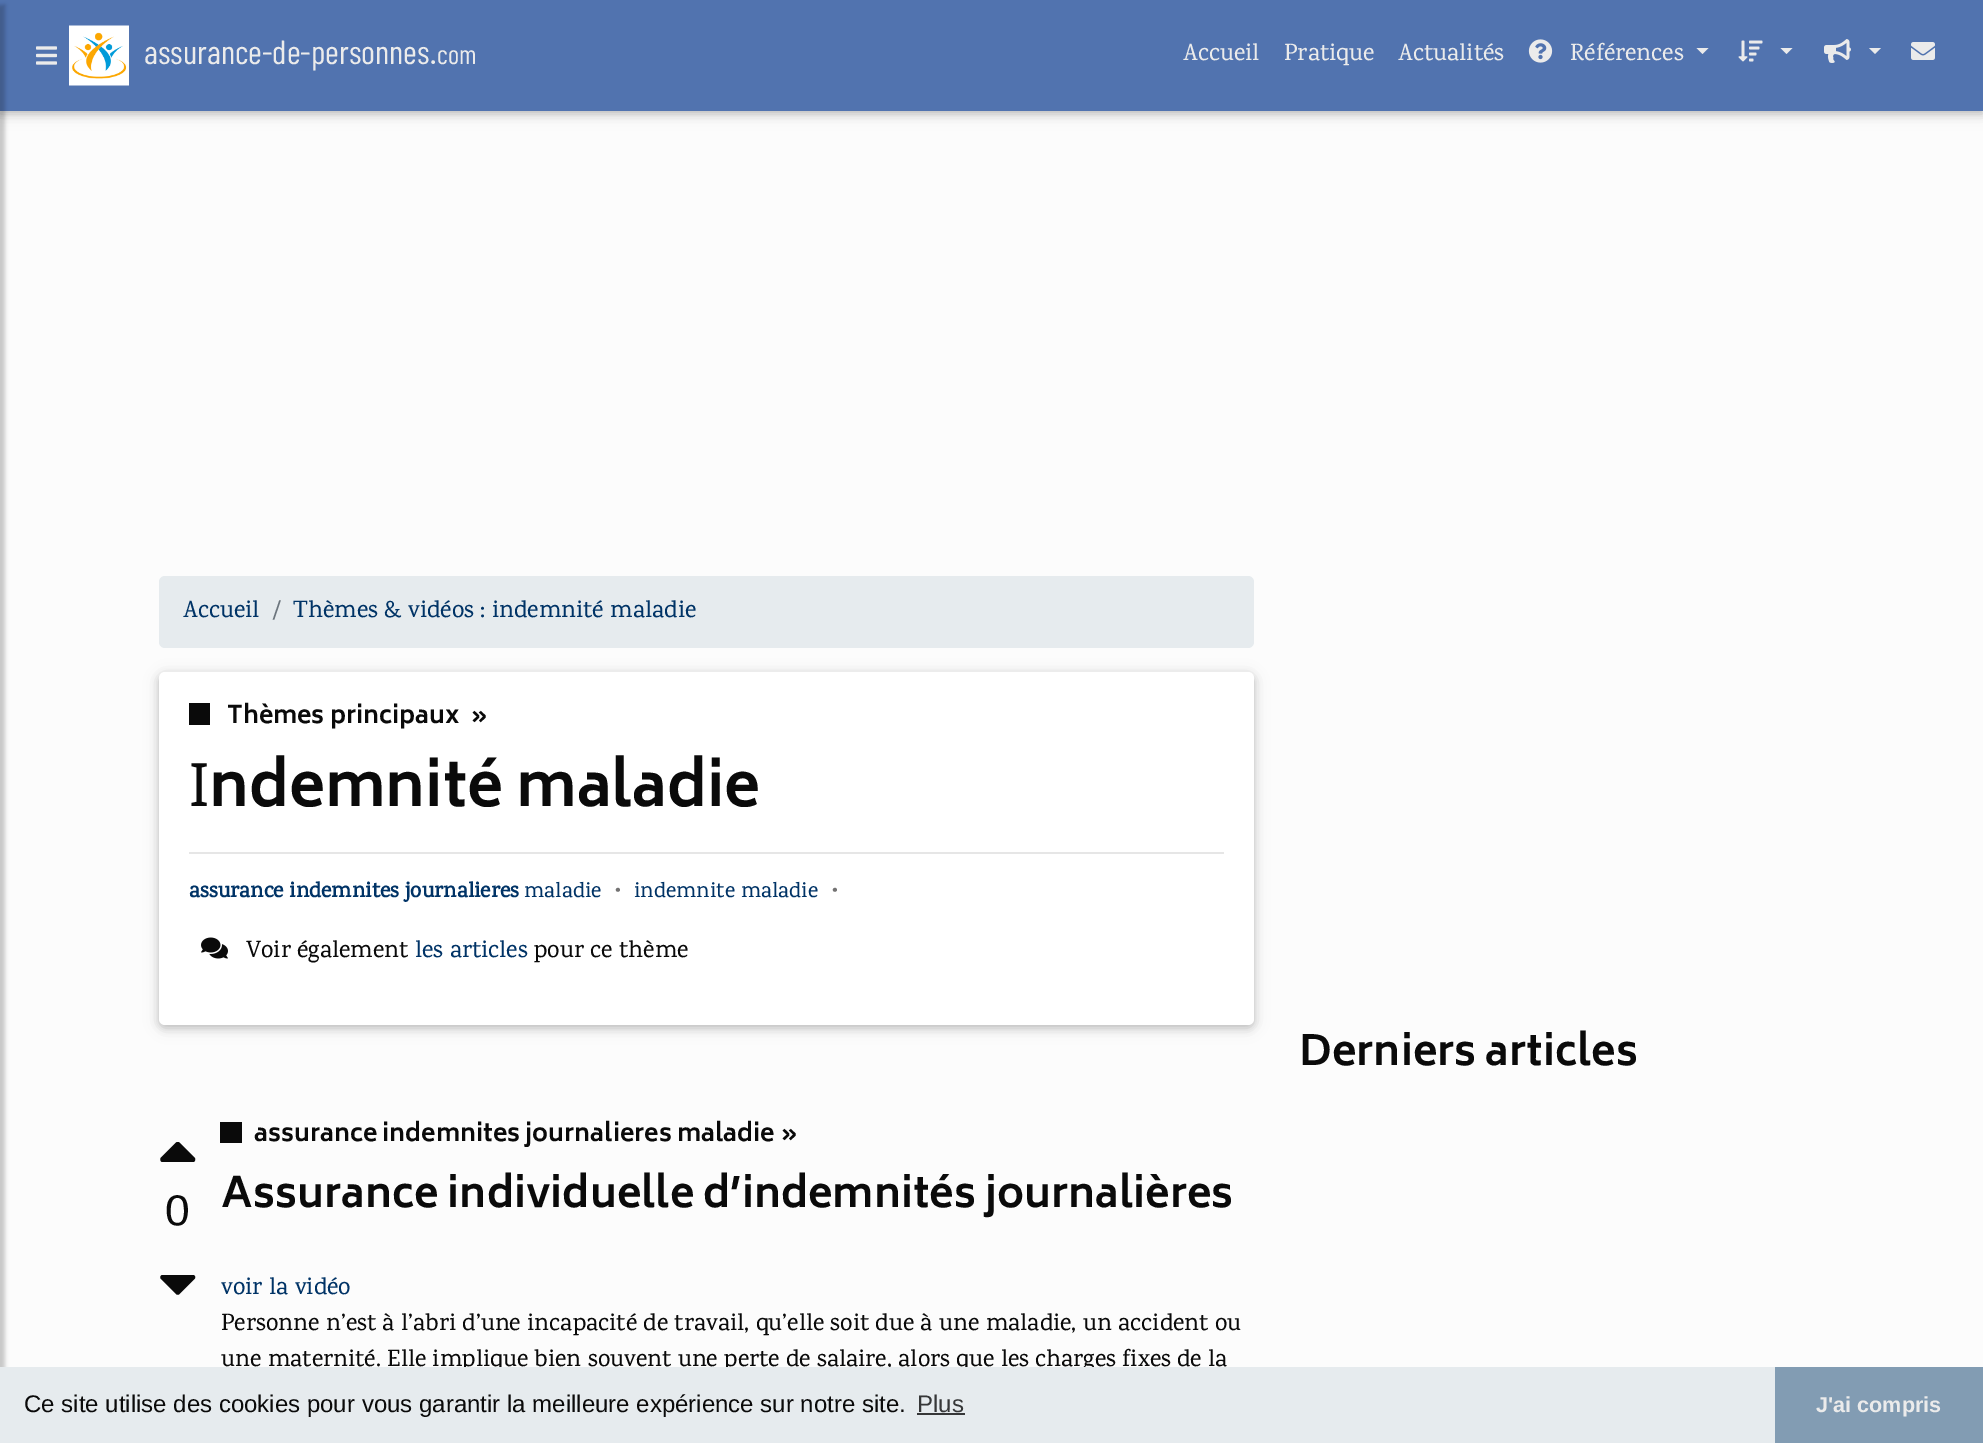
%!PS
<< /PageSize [1983 1443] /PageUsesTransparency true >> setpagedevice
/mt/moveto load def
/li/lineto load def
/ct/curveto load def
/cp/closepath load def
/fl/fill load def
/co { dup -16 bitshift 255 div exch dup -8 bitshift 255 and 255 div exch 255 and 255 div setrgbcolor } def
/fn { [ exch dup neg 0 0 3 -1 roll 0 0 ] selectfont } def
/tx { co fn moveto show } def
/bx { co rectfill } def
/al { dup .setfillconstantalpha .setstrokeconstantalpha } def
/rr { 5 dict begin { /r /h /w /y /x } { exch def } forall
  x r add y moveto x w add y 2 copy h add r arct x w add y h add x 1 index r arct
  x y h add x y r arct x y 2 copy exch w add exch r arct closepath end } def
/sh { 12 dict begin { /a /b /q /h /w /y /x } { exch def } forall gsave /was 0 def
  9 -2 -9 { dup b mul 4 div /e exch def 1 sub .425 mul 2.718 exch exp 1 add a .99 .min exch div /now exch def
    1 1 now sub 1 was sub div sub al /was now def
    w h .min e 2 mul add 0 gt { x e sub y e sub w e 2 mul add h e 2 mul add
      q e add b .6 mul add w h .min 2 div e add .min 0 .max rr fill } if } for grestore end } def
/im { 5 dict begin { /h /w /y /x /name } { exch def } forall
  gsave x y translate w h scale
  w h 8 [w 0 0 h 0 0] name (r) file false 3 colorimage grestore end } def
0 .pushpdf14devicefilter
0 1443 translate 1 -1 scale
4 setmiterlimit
0 0 1983 1443 16#FCFCFC bx
16#000000 co
0 3 1983 111 0 7.5 .12 sh
0 3 1983 111 0 4 .16 sh
0 0 1983 111 16#5173AF bx
16#000000 co
-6 5 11 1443 0 2 .2 sh
(media/1.raw) 36 46 21 19 im
(media/2.raw) 69 25 60 61 im
(media/3.raw) 1528 39 25 24 im
16#EBEBEB co
1696.5 48 mt 1708.5 48 li 1702.5 54 li cp fl
(media/4.raw) 1738 40 25 22 im
1780.5 48 mt 1792.5 48 li 1786.5 54 li cp fl
(media/5.raw) 1824 39 27 24 im
1869 48 mt 1881 48 li 1875 54 li cp fl
(media/6.raw) 1911 42 24 18 im
16#E6EBEE co
159 576 1095 72 6 rr fl
16#000000 co
159 675 1095 353 6 7.5 .12 sh
159 675 1095 353 6 4 .16 sh
16#FFFFFF co
159 672 1095 353 6 rr fl
189 703 21 22 16#0A0A0A bx
189 852 1035 2 16#E6E6E6 bx
(media/7.raw) 201 937 27 22 im
16#0A0A0A co
193 1162 mt 162.5 1162 li 160.5 1162 159.5 1159 161 1157.5 ct 176 1142.5 li 177 1142 178.5 1142 179.5 1142.5 ct 194.5 1157.5 li 196 1159 195 1162 193 1162 ct cp fl
162.5 1275 mt 193 1275 li 195 1275 196 1277.5 194.5 1279 ct 179.5 1294 li 178.5 1295 177 1295 176 1294 ct 161 1279 li 159.5 1277.5 160.5 1275 162.5 1275 ct cp fl
220 1122 22 21 16#0A0A0A bx
1775 1367 208 76 16#829CB3 bx
(assurance-de-personnes.) 144 64 /BarlowCondensed-Regular 33.5 16#EBEBEB tx
(com) 437 64 /BarlowCondensed-Regular 27 16#EBEBEB tx
(Accueil) 1183 60 /Karma-Medium 24 16#EBEBEB tx
(Pratique) 1284 60 /Karma-Medium 24 16#EBEBEB tx
(Actualités) 1398 60 /Karma-Medium 24 16#EBEBEB tx
(Références) 1570 60 /Karma-Medium 24 16#EBEBEB tx
(Accueil) 183 617 /Karma-Medium 24 16#003366 tx
(/) 272 617 /Karma-Medium 24 16#6C757D tx
(Thèmes & vidéos : indemnité maladie) 293 617 /Karma-Medium 24 16#003366 tx
(Thèmes principaux) 227 723 /Biryani-Bold 24 16#0A0A0A tx
(») 470 723 /Biryani-Bold 24 16#0A0A0A tx
(I) 189 806 /NotoSans-Regular 60 16#0A0A0A tx
(ndemnité maladie) 209 806 /Biryani-Bold 60 16#0A0A0A tx
(assurance indemnites journalieres) 189 897 /Karma-Bold 21.6 16#003366 tx
(maladie) 524 897 /Karma-Medium 21.6 16#003366 tx
(•) 613 897 /Karma-Medium 21.6 16#747373 tx
(indemnite maladie) 634 897 /Karma-Medium 21.6 16#003366 tx
(•) 830 897 /Karma-Medium 21.6 16#747373 tx
(Voir également) 246 957 /Karma-Medium 24 16#0A0A0A tx
(les articles) 415 957 /Karma-Medium 24 16#003366 tx
(pour ce thème) 534 957 /Karma-Medium 24 16#0A0A0A tx
(0) 165 1225 /Karma-Medium 48 16#0A0A0A tx
(assurance indemnites journalieres maladie ») 254 1141 /Biryani-Bold 24 16#0A0A0A tx
(Assurance individuelle d’indemnités journalières) 221 1207 /Biryani-Bold 40.8 16#0A0A0A tx
(voir la vidéo) 221 1294 /Karma-Medium 24 16#003366 tx
(Personne n’est à l’abri d’une incapacité de travail, qu’elle soit due à une maladie, un accident ou) 221 1330 /Karma-Medium 24 16#0A0A0A tx
(une maternité. Elle implique bien souvent une perte de salaire, alors que les charges fixes de la) 221 1366 /Karma-Medium 24 16#0A0A0A tx
(Derniers articles) 1299 1065 /Biryani-Bold 40.8 16#0A0A0A tx
0 1367 1775 76 16#E6EBEE bx
(Ce site utilise des cookies pour vous garantir la meilleure expérience sur notre site.) 24 1412 /LiberationSans-Regular 24 16#0A0A0A tx
(Plus) 917 1412 /LiberationSans-Regular 24 16#363738 tx
917 1413 48 2 16#363738 bx
(J'ai compris) 1816 1412 /LiberationSans-Bold 21.6 16#EBEBEB tx
.poppdf14devicefilter showpage
